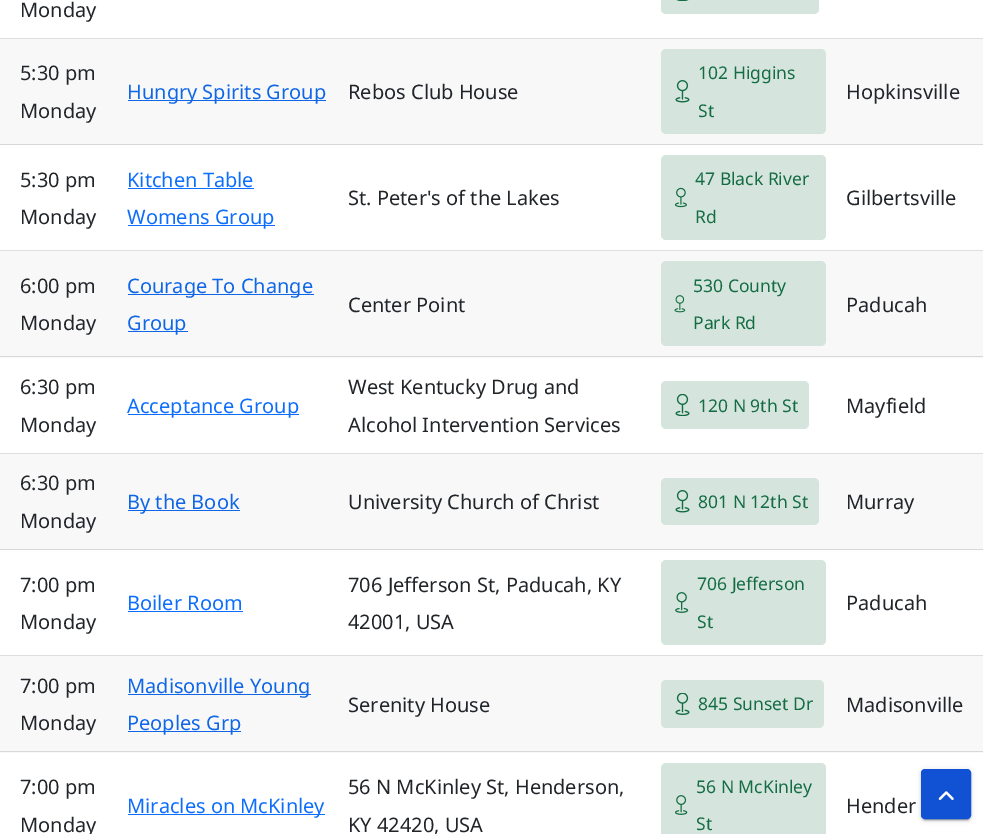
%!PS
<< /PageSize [983 834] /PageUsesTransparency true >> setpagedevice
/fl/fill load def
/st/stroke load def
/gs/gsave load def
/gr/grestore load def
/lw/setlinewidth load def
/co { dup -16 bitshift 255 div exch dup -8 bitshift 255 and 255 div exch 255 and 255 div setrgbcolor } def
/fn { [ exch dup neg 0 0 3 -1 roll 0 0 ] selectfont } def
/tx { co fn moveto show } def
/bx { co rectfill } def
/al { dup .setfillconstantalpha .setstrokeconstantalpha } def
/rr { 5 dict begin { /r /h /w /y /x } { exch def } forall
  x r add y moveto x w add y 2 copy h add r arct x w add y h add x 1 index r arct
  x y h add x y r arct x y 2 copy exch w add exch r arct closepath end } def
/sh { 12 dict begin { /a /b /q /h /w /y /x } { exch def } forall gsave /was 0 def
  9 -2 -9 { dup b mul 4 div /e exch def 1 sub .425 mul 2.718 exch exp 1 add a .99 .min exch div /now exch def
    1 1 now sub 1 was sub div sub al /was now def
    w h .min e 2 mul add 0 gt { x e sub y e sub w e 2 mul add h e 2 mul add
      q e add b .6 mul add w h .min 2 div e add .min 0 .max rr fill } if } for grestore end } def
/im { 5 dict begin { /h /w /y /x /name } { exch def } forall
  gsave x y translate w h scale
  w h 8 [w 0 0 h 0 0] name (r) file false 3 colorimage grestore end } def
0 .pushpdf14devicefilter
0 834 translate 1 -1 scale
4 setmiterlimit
0 0 983 834 16#FFFFFF bx
0 656 983 97 16#F8F8F9 bx
0 454 983 95 16#F8F8F9 bx
0 251 983 107 16#F8F8F9 bx
0 39 983 105 16#F8F8F9 bx
16#D5E5DD co
661 -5 158 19 5 rr fl
(media/1.raw) 676 0 13 1 im
0 38 983 1 16#DEDEDF bx
128 100 198 1 16#0F67E8 bx
16#D5E5DD co
661 49 165 85 5 rr fl
(media/2.raw) 675 80 15 23 im
0 144 983 1 16#D8D8DA bx
128 188 126 1 16#0D6EFD bx
128 225 147 1 16#0D6EFD bx
16#D5E5DD co
661 155 165 85 5 rr fl
(media/3.raw) 674 187 13 21 im
0 250 983 1 16#DEDEDF bx
128 294 186 1 16#0F67E8 bx
128 331 60 1 16#0F67E8 bx
16#D5E5DD co
661 261 165 85 5 rr fl
(media/4.raw) 674 295 12 18 im
0 356 983 1 16#D8D8DA bx
128 414 171 1 16#0D6EFD bx
16#D5E5DD co
661 381 148 48 5 rr fl
(media/5.raw) 675 394 15 22 im
0 453 983 1 16#DEDEDF bx
128 510 112 1 16#0F67E8 bx
16#D5E5DD co
661 478 158 47 5 rr fl
(media/6.raw) 675 490 15 23 im
0 549 983 1 16#D8D8DA bx
128 611 115 1 16#0D6EFD bx
16#D5E5DD co
661 560 165 85 5 rr fl
(media/7.raw) 675 592 14 21 im
0 655 983 1 16#DEDEDF bx
128 694 183 1 16#0F67E8 bx
128 731 113 1 16#0F67E8 bx
16#D5E5DD co
661 680 163 48 5 rr fl
(media/8.raw) 675 693 15 22 im
0 751 983 1 16#D8D8DA bx
128 814 197 1 16#0D6EFD bx
16#D5E5DD co
661 763 165 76 5 rr fl
(media/9.raw) 675 795 13 20 im
16#000000 co
921 770 50 50 4 3 .12 sh
924 775 45 45 1 .5 .2 sh
921 771 50 50 4 1 .14 sh
16#1151D3 co
922.5 770.5 47 47 2.5 rr gs fl gr
3 lw
st
(media/10.raw) 938 791 16 9 im
(Monday) 20 17 /NotoSans-Regular 20 16#212529 tx
(5:30 pm) 20 80 /NotoSans-Regular 20 16#212529 tx
(Monday) 20 118 /NotoSans-Regular 20 16#212529 tx
(Hungry Spirits Group) 127 99 /NotoSans-Regular 20 16#0F67E8 tx
(Rebos Club House) 348 99 /NotoSans-Regular 20 16#212529 tx
(102 Higgins) 698 79 /NotoSans-Regular 17.5 16#146C43 tx
(St) 698 117 /NotoSans-Regular 17.5 16#146C43 tx
(Hopkinsville) 846 99 /NotoSans-Regular 20 16#212529 tx
(5:30 pm) 20 187 /NotoSans-Regular 20 16#212529 tx
(Monday) 20 224 /NotoSans-Regular 20 16#212529 tx
(Kitchen Table) 127 187 /NotoSans-Regular 20 16#0D6EFD tx
(Womens Group) 127 224 /NotoSans-Regular 20 16#0D6EFD tx
(St. Peter's of the Lakes) 348 205 /NotoSans-Regular 20 16#212529 tx
(47 Black River) 695 185 /NotoSans-Regular 17.5 16#146C43 tx
(Rd) 695 223 /NotoSans-Regular 17.5 16#146C43 tx
(Gilbertsville) 846 205 /NotoSans-Regular 20 16#212529 tx
(6:00 pm) 20 293 /NotoSans-Regular 20 16#212529 tx
(Monday) 20 330 /NotoSans-Regular 20 16#212529 tx
(Courage To Change) 127 293 /NotoSans-Regular 20 16#0F67E8 tx
(Group) 127 330 /NotoSans-Regular 20 16#0F67E8 tx
(Center Point) 348 312 /NotoSans-Regular 20 16#212529 tx
(530 County) 693 292 /NotoSans-Regular 17.5 16#146C43 tx
(Park Rd) 693 329 /NotoSans-Regular 17.5 16#146C43 tx
(Paducah) 846 312 /NotoSans-Regular 20 16#212529 tx
(6:30 pm) 20 394 /NotoSans-Regular 20 16#212529 tx
(Monday) 20 432 /NotoSans-Regular 20 16#212529 tx
(Acceptance Group) 127 413 /NotoSans-Regular 20 16#0D6EFD tx
(West Kentucky Drug and) 348 394 /NotoSans-Regular 20 16#212529 tx
(Alcohol Intervention Services) 348 432 /NotoSans-Regular 20 16#212529 tx
(120 N 9th St) 698 412 /NotoSans-Regular 17.5 16#146C43 tx
(Mayfield) 846 413 /NotoSans-Regular 20 16#212529 tx
(6:30 pm) 20 490 /NotoSans-Regular 20 16#212529 tx
(Monday) 20 528 /NotoSans-Regular 20 16#212529 tx
(By the Book) 127 509 /NotoSans-Regular 20 16#0F67E8 tx
(University Church of Christ) 348 509 /NotoSans-Regular 20 16#212529 tx
(801 N 12th St) 698 508 /NotoSans-Regular 17.5 16#146C43 tx
(Murray) 846 509 /NotoSans-Regular 20 16#212529 tx
(7:00 pm) 20 592 /NotoSans-Regular 20 16#212529 tx
(Monday) 20 629 /NotoSans-Regular 20 16#212529 tx
(Boiler Room) 127 610 /NotoSans-Regular 20 16#0D6EFD tx
(706 Jefferson St, Paducah, KY) 348 592 /NotoSans-Regular 20 16#212529 tx
(42001, USA) 348 629 /NotoSans-Regular 20 16#212529 tx
(706 Jefferson) 697 590 /NotoSans-Regular 17.5 16#146C43 tx
(St) 697 628 /NotoSans-Regular 17.5 16#146C43 tx
(Paducah) 846 610 /NotoSans-Regular 20 16#212529 tx
(7:00 pm) 20 693 /NotoSans-Regular 20 16#212529 tx
(Monday) 20 730 /NotoSans-Regular 20 16#212529 tx
(Madisonville Young) 127 693 /NotoSans-Regular 20 16#0F67E8 tx
(Peoples Grp) 127 730 /NotoSans-Regular 20 16#0F67E8 tx
(Serenity House) 348 712 /NotoSans-Regular 20 16#212529 tx
(845 Sunset Dr) 698 710 /NotoSans-Regular 17.5 16#146C43 tx
(Madisonville) 846 712 /NotoSans-Regular 20 16#212529 tx
(7:00 pm) 20 794 /NotoSans-Regular 20 16#212529 tx
(Monday) 20 832 /NotoSans-Regular 20 16#212529 tx
(Miracles on McKinley) 127 813 /NotoSans-Regular 20 16#0D6EFD tx
(56 N McKinley St, Henderson,) 348 794 /NotoSans-Regular 20 16#212529 tx
(KY 42420, USA) 348 832 /NotoSans-Regular 20 16#212529 tx
(56 N McKinley) 696 793 /NotoSans-Regular 17.5 16#146C43 tx
(St) 696 830 /NotoSans-Regular 17.5 16#146C43 tx
(Hender) 846 813 /NotoSans-Regular 20 16#212529 tx
.poppdf14devicefilter showpage
